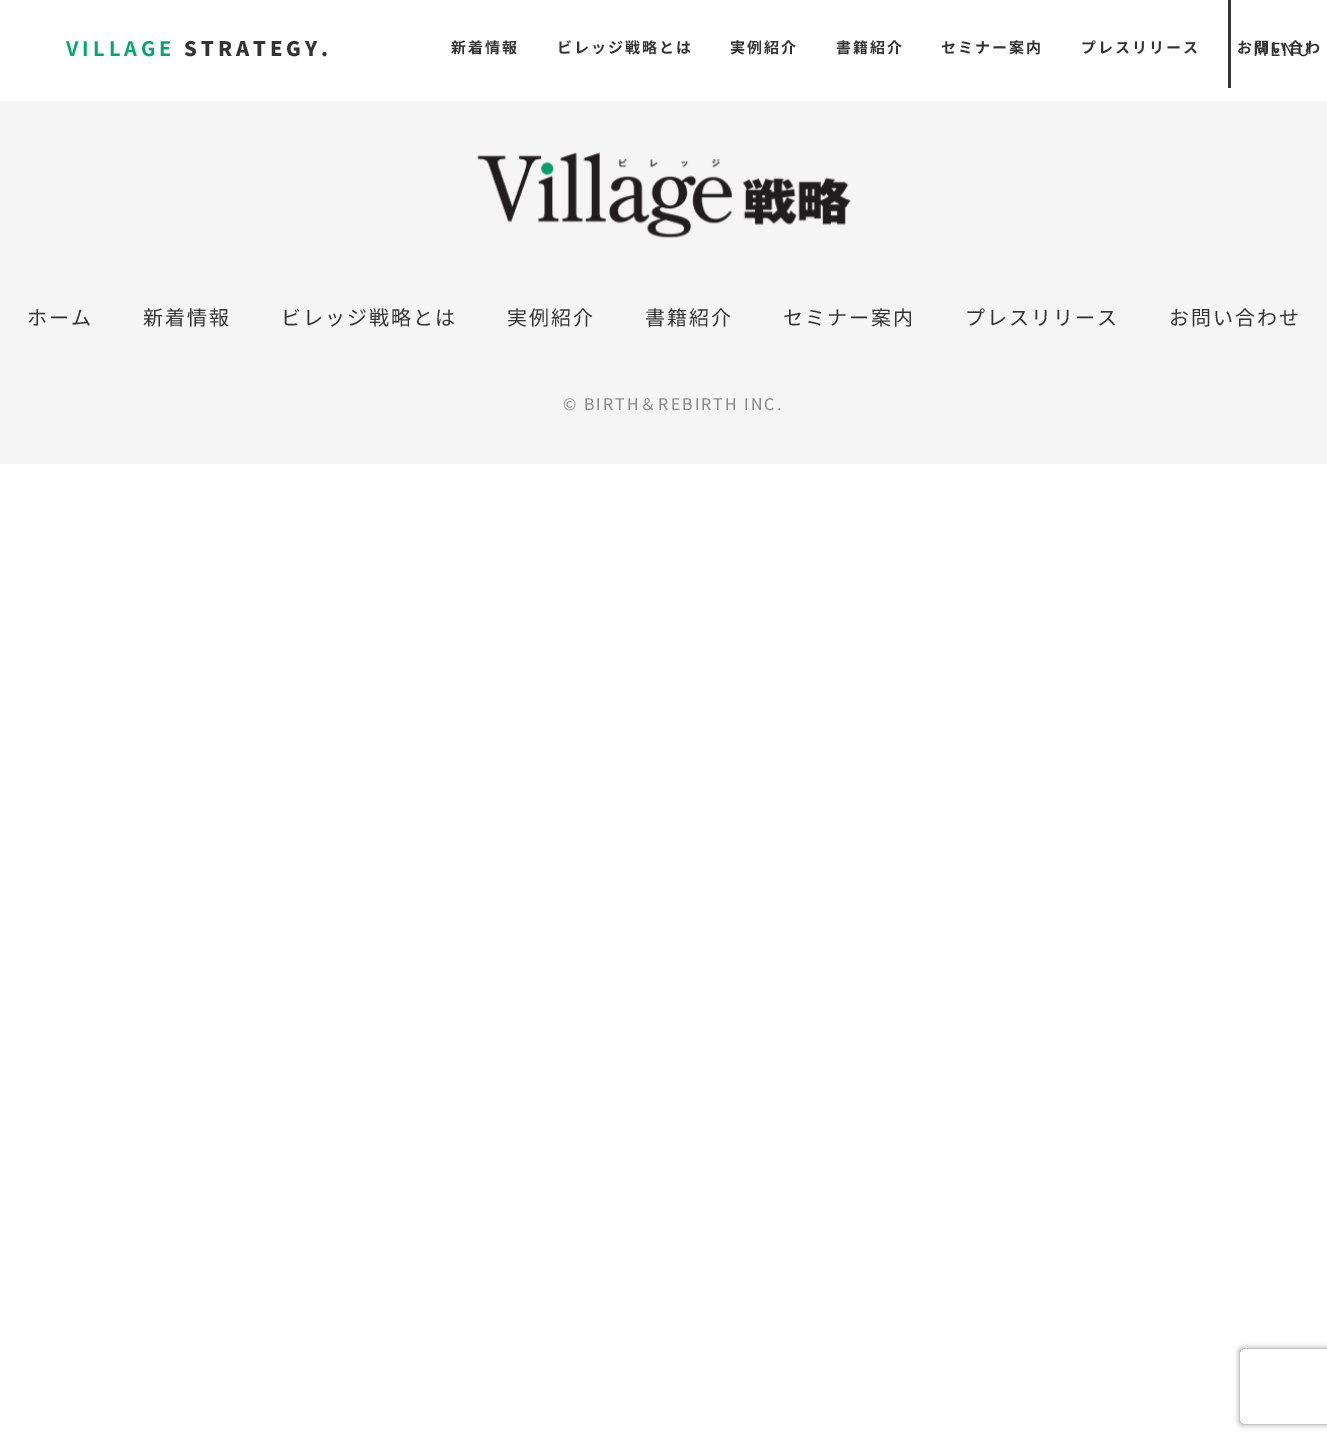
%!PS
<< /PageSize [1327 1441] /PageUsesTransparency true >> setpagedevice
/mt/moveto load def
/li/lineto load def
/ct/curveto load def
/cp/closepath load def
/gs/gsave load def
/gr/grestore load def
/co { dup -16 bitshift 255 div exch dup -8 bitshift 255 and 255 div exch 255 and 255 div setrgbcolor } def
/fn { [ exch dup neg 0 0 3 -1 roll 0 0 ] selectfont } def
/bx { co rectfill } def
/al { dup .setfillconstantalpha .setstrokeconstantalpha } def
/rr { 5 dict begin { /r /h /w /y /x } { exch def } forall
  x r add y moveto x w add y 2 copy h add r arct x w add y h add x 1 index r arct
  x y h add x y r arct x y 2 copy exch w add exch r arct closepath end } def
/sh { 12 dict begin { /a /b /q /h /w /y /x } { exch def } forall gsave /was 0 def
  9 -2 -9 { dup b mul 4 div /e exch def 1 sub .425 mul 2.718 exch exp 1 add a .99 .min exch div /now exch def
    1 1 now sub 1 was sub div sub al /was now def
    w h .min e 2 mul add 0 gt { x e sub y e sub w e 2 mul add h e 2 mul add
      q e add b .6 mul add w h .min 2 div e add .min 0 .max rr fill } if } for grestore end } def
/im { 5 dict begin { /h /w /y /x /name } { exch def } forall
  gsave x y translate w h scale
  w h 8 [w 0 0 h 0 0] name (r) file false 3 colorimage grestore end } def
0 .pushpdf14devicefilter
0 1441 translate 1 -1 scale
4 setmiterlimit
0 0 1327 1441 16#FFFFFF bx
1228 0 3 88 16#333333 bx
0 101 1327 363 16#F5F5F5 bx
(media/1.raw) 477 152 374 87 im
gs
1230 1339 mt 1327 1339 li 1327 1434 li 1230 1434 li cp 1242.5 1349 mt 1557.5 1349 li 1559 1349 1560 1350 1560 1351.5 ct 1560 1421.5 li 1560 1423 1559 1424 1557.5 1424 ct 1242.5 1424 li 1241 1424 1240 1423 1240 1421.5 ct 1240 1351.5 li 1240 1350 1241 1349 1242.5 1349 ct cp eoclip newpath
16#808080 co
1240 1349 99 75 2.5 3 1 sh
gr
/NotoSansJP-Bold 20 fn
16#00A76E co
66 56 mt 4 0 (VILLAGE) ashow
/NotoSansJP-Black 20 fn
16#333333 co
184 56 mt 4 0 (STRATEGY.) ashow
/NotoSansJP-Bold 15 fn
451 53 mt 2 0 (新着情報) ashow
557 53 mt 2 0 (ビレッジ戦略とは) ashow
730 53 mt 2 0 (実例紹介) ashow
836 53 mt 2 0 (書籍紹介) ashow
941 53 mt 2 0 (セミナー案内) ashow
1081 53 mt 2 0 (プレスリリース) ashow
1237 53 mt 2 0 (お問い合わ) ashow
/NotoSansJP-Regular 18 fn
1253 56 mt 2 0 (MENU) ashow
/NotoSansJP-Regular 20 fn
27 325 mt 2 0 (ホーム) ashow
143 325 mt 2 0 (新着情報) ashow
281 325 mt 2 0 (ビレッジ戦略とは) ashow
507 325 mt 2 0 (実例紹介) ashow
645 325 mt 2 0 (書籍紹介) ashow
783 325 mt 2 0 (セミナー案内) ashow
965 325 mt 2 0 (プレスリリース) ashow
1169 325 mt 2 0 (お問い合わせ) ashow
/NotoSansJP-Regular 16 fn
16#888888 co
563 410 mt 2 0 (© BIRTH＆REBIRTH INC.) ashow
.poppdf14devicefilter showpage
